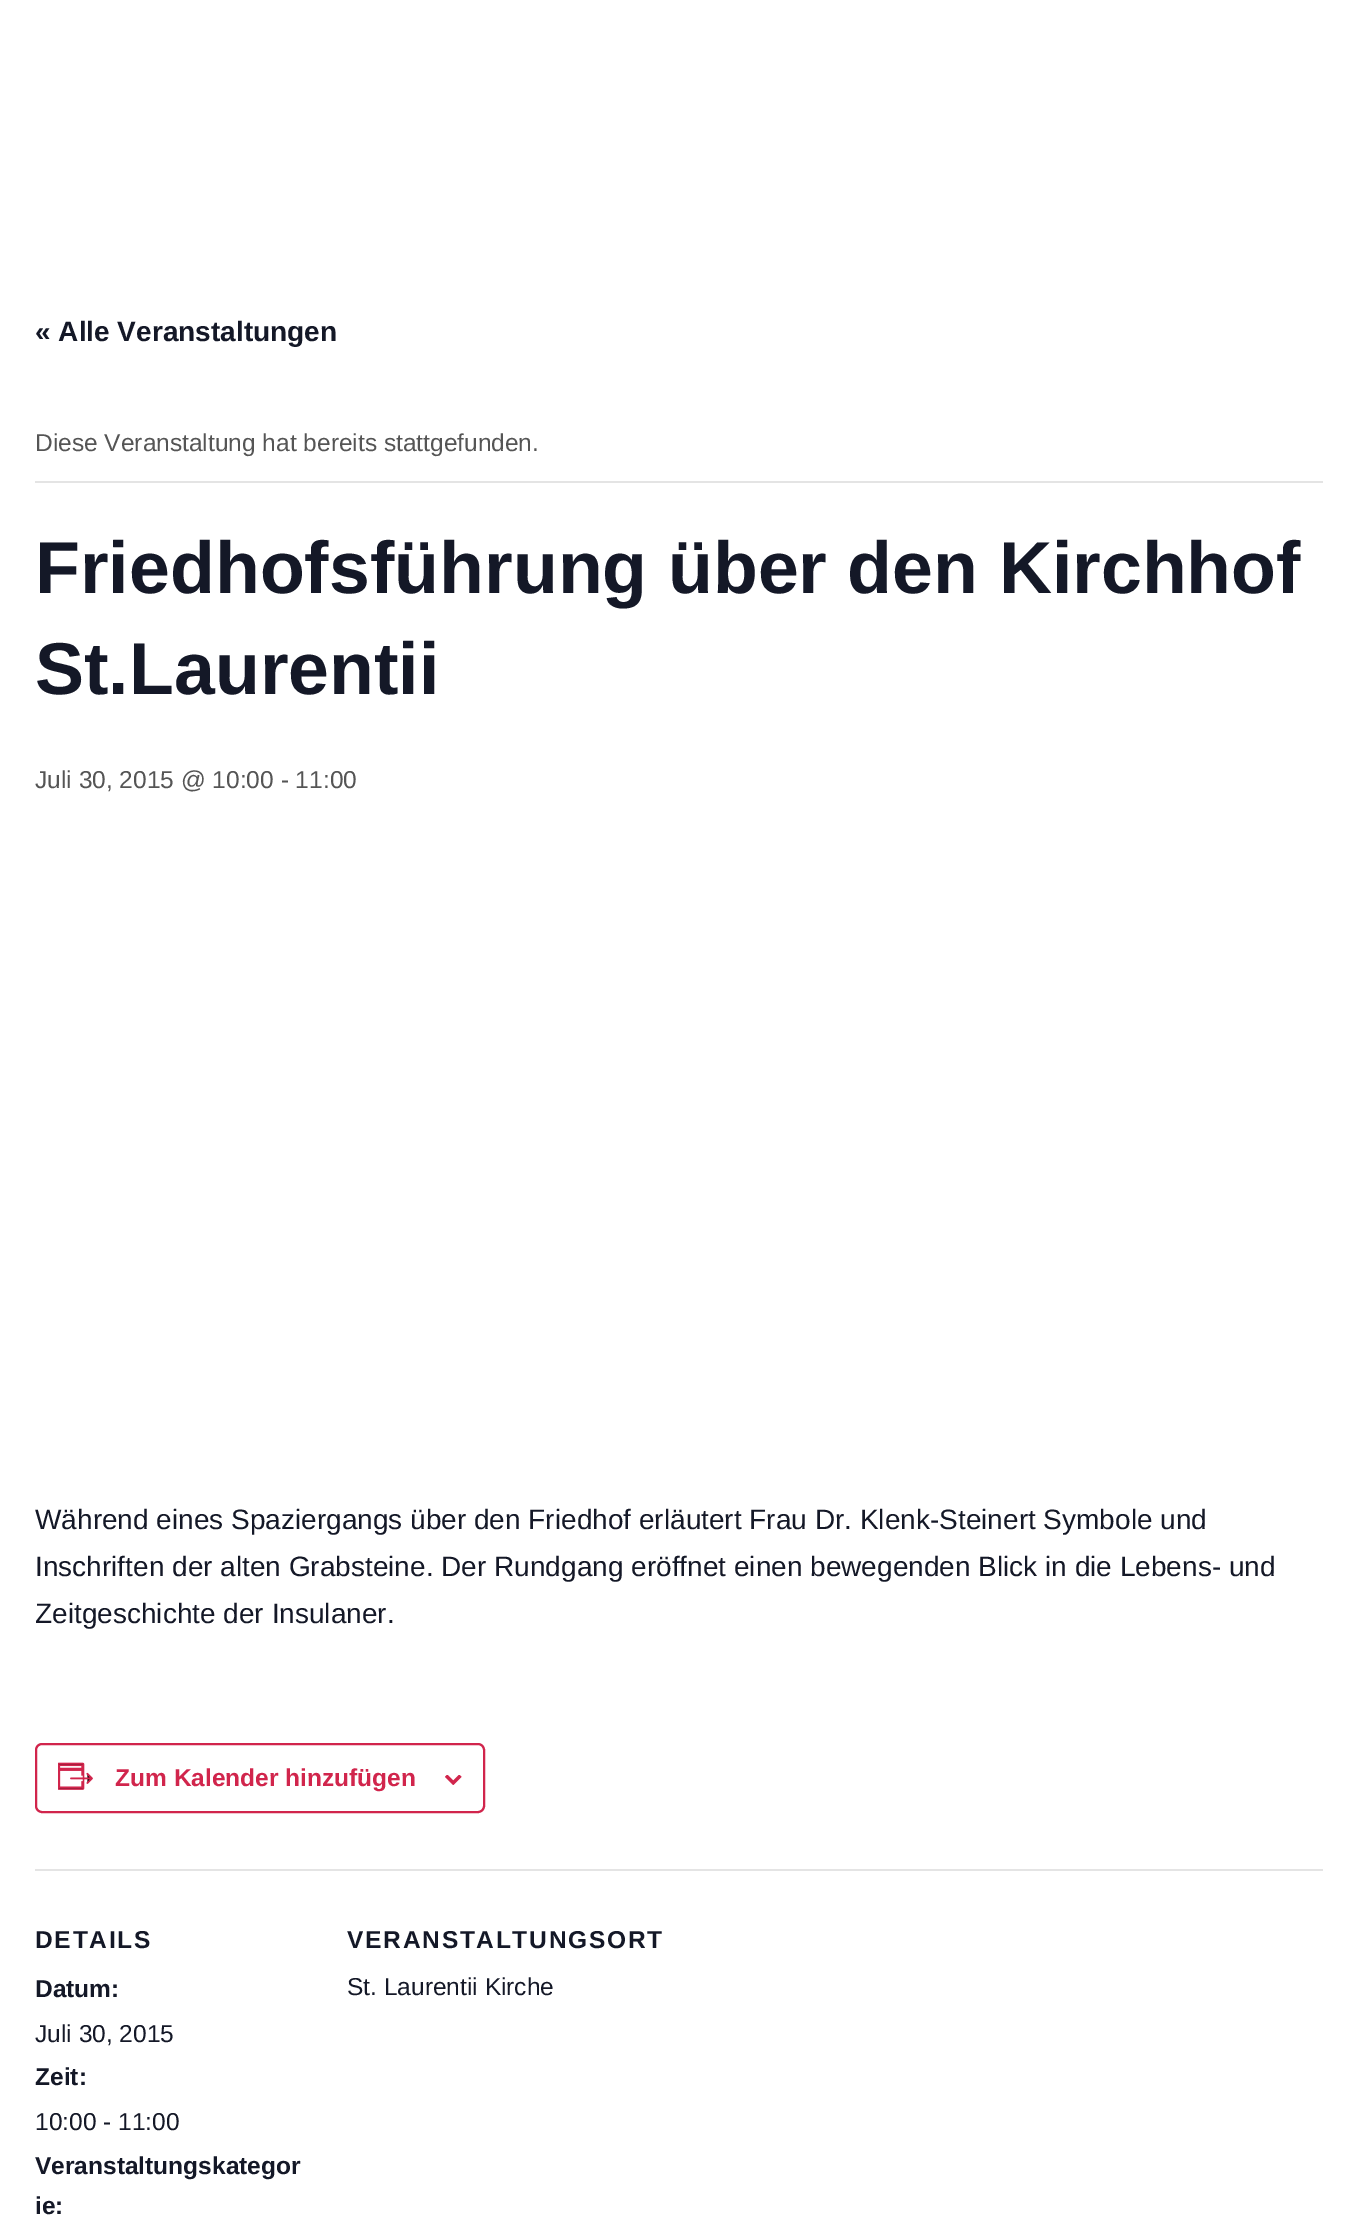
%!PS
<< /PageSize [1357 2240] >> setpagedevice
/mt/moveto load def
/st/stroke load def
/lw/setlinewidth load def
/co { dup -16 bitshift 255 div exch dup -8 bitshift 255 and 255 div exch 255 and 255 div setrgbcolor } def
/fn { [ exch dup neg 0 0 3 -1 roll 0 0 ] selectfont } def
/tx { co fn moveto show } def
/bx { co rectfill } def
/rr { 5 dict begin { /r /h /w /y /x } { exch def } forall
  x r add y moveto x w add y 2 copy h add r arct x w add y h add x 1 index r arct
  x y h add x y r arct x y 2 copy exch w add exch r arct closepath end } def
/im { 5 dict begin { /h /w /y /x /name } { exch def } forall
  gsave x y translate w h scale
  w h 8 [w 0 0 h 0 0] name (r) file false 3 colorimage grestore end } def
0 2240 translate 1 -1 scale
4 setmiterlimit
0 0 1357 2240 16#FFFFFF bx
35 481 1288 2 16#E4E4E4 bx
16#D1254C co
2 lw
36 1744 448 68 6 rr st
(media/1.raw) 58 1762 35 28 im
(media/2.raw) 445 1775 17 10 im
35 1869 1288 2 16#E4E4E4 bx
(« Alle Veranstaltungen) 35 341 /LiberationSans-Bold 28 16#141827 tx
(Diese Veranstaltung hat bereits stattgefunden.) 35 451 /LiberationSans-Regular 24.5 16#555555 tx
(Friedhofsführung über den Kirchhof) 35 593 /LiberationSans-Bold 73.5 16#141827 tx
(St.Laurentii) 35 694 /LiberationSans-Bold 73.5 16#141827 tx
(Juli 30, 2015 @ 10:00 - 11:00) 35 788 /LiberationSans-Regular 24.5 16#555555 tx
(Während eines Spaziergangs über den Friedhof erläutert Frau Dr. Klenk-Steinert Symbole und) 35 1529 /LiberationSans-Regular 28 16#141827 tx
(Inschriften der alten Grabsteine. Der Rundgang eröffnet einen bewegenden Blick in die Lebens- und) 35 1576 /LiberationSans-Regular 28 16#141827 tx
(Zeitgeschichte der Insulaner.) 35 1623 /LiberationSans-Regular 28 16#141827 tx
(Zum Kalender hinzufügen) 115 1786 /LiberationSans-Bold 24.5 16#D1254C tx
16#141827 co
35 1948 mt 1.75 0 (DETAILS) ashow
(Datum:) 35 1997 /LiberationSans-Bold 24.5 16#141827 tx
(Juli 30, 2015) 35 2042 /LiberationSans-Regular 24.5 16#141827 tx
(Zeit:) 35 2085 /LiberationSans-Bold 24.5 16#141827 tx
(10:00 - 11:00) 35 2130 /LiberationSans-Regular 24.5 16#141827 tx
(Veranstaltungskategor) 35 2174 /LiberationSans-Bold 24.5 16#141827 tx
(ie:) 35 2214 /LiberationSans-Bold 24.5 16#141827 tx
347 1948 mt 1.75 0 (VERANSTALTUNGSORT) ashow
(St. Laurentii Kirche) 347 1995 /LiberationSans-Regular 24.5 16#141827 tx
showpage
